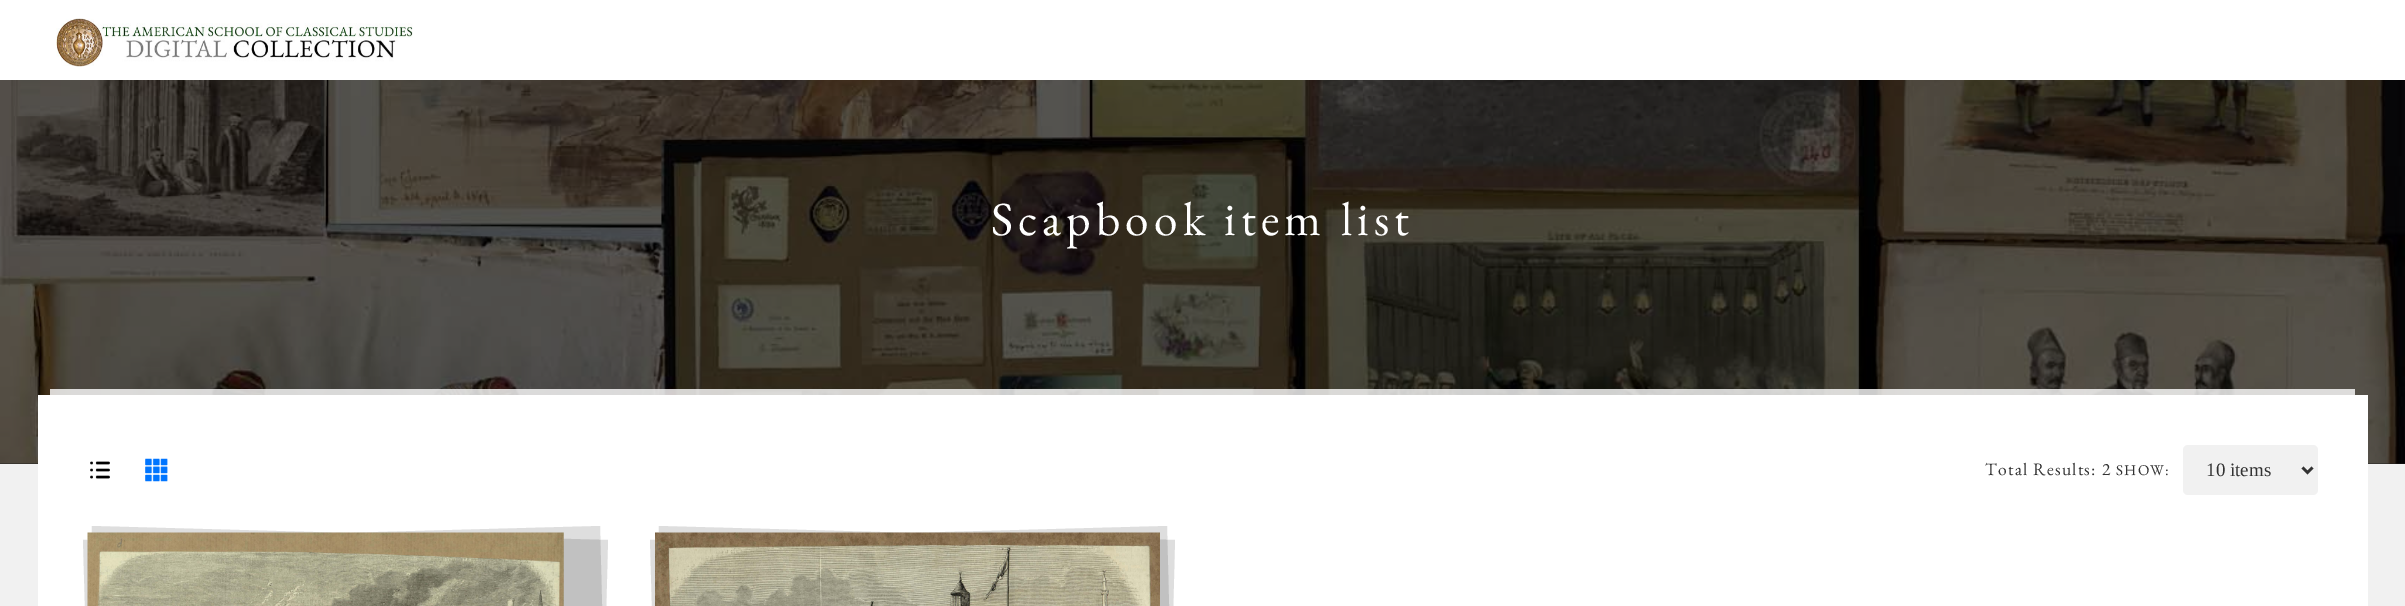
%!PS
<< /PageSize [2405 606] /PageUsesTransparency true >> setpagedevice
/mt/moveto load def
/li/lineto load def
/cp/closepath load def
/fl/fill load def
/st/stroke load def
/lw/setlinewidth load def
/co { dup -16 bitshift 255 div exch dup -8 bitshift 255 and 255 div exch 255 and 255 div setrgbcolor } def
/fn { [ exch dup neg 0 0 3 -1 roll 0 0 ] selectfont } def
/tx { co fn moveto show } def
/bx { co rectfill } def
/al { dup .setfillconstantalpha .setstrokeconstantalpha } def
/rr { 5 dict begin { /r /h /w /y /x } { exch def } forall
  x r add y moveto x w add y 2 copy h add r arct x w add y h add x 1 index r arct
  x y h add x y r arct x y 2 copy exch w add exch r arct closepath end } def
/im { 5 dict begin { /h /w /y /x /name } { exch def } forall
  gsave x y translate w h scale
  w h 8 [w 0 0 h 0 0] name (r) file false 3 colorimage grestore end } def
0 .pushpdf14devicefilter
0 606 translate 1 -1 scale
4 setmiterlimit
0 0 2405 606 16#F1F1F1 bx
0 0 2405 80 16#FFFFFF bx
(media/1.raw) 56 18 357 49 im
0 463 2405 1 16#1D1D1D bx
(media/2.raw) 0 80 2405 384 im
38 395 2330 211 16#FFFFFF bx
0.8 al
50 389 2305 6 16#FFFFFF bx
1 al
(media/3.raw) 90 461 20 18 im
(media/4.raw) 145 458 23 24 im
16#F1F1F1 co
2183 445 135 50 5 rr fl
16#333333 co
2.5 lw
2302.5 467.5 mt 2307.5 472.5 li 2312.5 467.5 li st
16#DEDEDE co
92 526 mt 608 540 li 600 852 li 83 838 li cp fl
0.13 al
16#000000 co
83 540 mt 600 526 li 608 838 li 92 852 li cp fl
1 al
(media/5.raw) 87 532 477 74 im
16#DEDEDE co
659 526 mt 1175 540 li 1167 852 li 650 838 li cp fl
0.13 al
16#000000 co
650 540 mt 1167 526 li 1175 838 li 659 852 li cp fl
1 al
(media/6.raw) 655 532 505 74 im
/EBGaramond-Regular 47.5 fn
16#FFFFFF co
991 235 mt 5 0 (Scapbook item list) ashow
/EBGaramond-Regular 17.5 fn
16#333333 co
1985 475 mt 1.25 0 (Total Results: 2) ashow
/EBGaramond-Regular 15 fn
2116 475 mt 1.25 0 (SHOW:) ashow
(10 items) 2206 476 /LiberationSerif-Regular 19 16#333333 tx
.poppdf14devicefilter showpage
